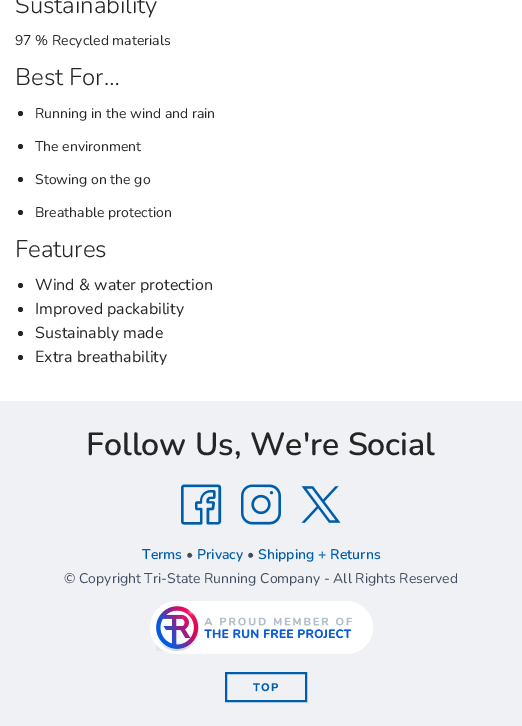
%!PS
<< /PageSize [522 726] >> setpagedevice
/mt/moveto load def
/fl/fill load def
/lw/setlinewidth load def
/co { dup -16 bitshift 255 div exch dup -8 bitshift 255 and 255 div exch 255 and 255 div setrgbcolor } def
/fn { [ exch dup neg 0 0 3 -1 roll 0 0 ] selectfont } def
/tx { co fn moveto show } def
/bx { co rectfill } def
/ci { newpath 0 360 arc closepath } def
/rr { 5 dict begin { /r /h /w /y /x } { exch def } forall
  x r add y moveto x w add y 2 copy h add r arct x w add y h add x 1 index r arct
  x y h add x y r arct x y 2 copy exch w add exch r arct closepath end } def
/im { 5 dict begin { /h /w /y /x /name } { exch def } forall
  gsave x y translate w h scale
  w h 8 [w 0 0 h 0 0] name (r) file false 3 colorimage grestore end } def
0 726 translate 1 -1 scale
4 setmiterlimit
0 0 522 726 16#FFFFFF bx
16#252525 co
20.5 113.5 2.5 ci fl
20.5 146.5 2.5 ci fl
20.5 179.5 2.5 ci fl
20.5 212.5 2.5 ci fl
20.5 285.5 2.5 ci fl
20.5 309.5 2.5 ci fl
20.5 333.5 2.5 ci fl
20.5 357.5 2.5 ci fl
0 401 522 325 16#EFF1F5 bx
(media/1.raw) 181 484 41 41 im
(media/2.raw) 241 484 40 41 im
(media/3.raw) 301 486 40 37 im
16#FFFFFF co
150 601 223 53 26.5 rr fl
(media/4.raw) 156 606 196 45 im
16#005DAA co
2 lw
226 673 80 28 rectstroke
(Sustainability) 15 13 /Nunito-Light 24 16#252525 tx
(97 % Recycled materials) 15 45 /Nunito-Regular 14 16#252525 tx
(Best For…) 15 85 /Nunito-Light 24 16#252525 tx
(Running in the wind and rain) 35 118 /Nunito-Regular 14 16#252525 tx
(The environment) 35 151 /Nunito-Regular 14 16#252525 tx
(Stowing on the go) 35 184 /Nunito-Regular 14 16#252525 tx
(Breathable protection) 35 217 /Nunito-Regular 14 16#252525 tx
(Features) 15 257 /Nunito-Light 24 16#252525 tx
(Wind & water protection) 35 290 /Nunito-Regular 16 16#252525 tx
(Improved packability) 35 314 /Nunito-Regular 16 16#252525 tx
(Sustainably made) 35 338 /Nunito-Regular 16 16#252525 tx
(Extra breathability) 35 362 /Nunito-Regular 16 16#252525 tx
(Follow Us, We're Social) 86 455 /Nunito-SemiBold 32 16#252525 tx
(Terms) 142 559 /Nunito-SemiBold 14 16#005DAA tx
(•) 186 559 /Nunito-Regular 14 16#434C5E tx
(Privacy) 197 559 /Nunito-SemiBold 14 16#005DAA tx
(•) 247 559 /Nunito-Regular 14 16#434C5E tx
(Shipping + Returns) 258 559 /Nunito-SemiBold 14 16#005DAA tx
(© Copyright Tri-State Running Company - All Rights Reserved) 64 583 /Nunito-Regular 14 16#434C5E tx
/Nunito-ExtraBold 11 fn
16#005DAA co
253 691 mt 1 0 (TOP) ashow
showpage
